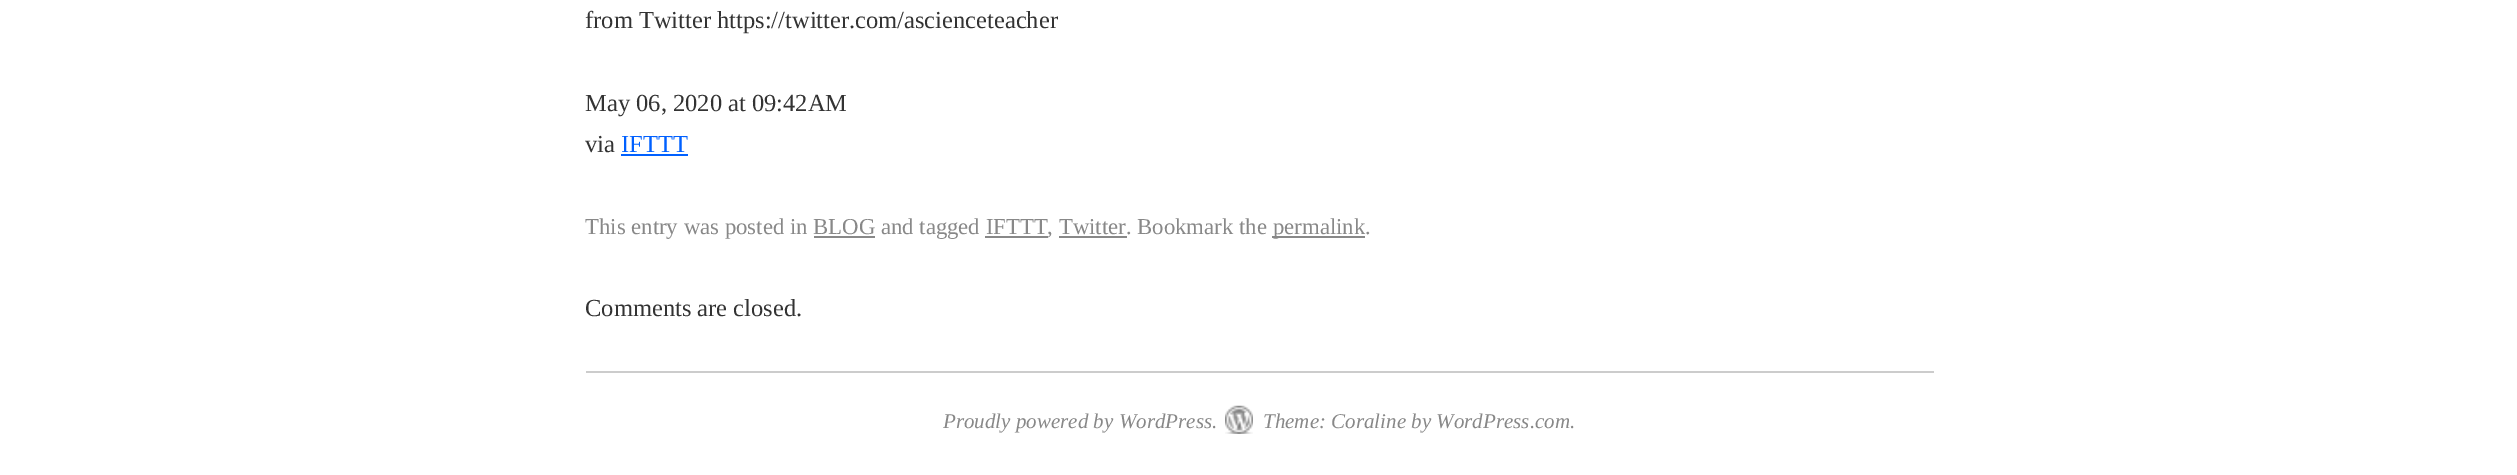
%!PS
<< /PageSize [2517 475] >> setpagedevice
/co { dup -16 bitshift 255 div exch dup -8 bitshift 255 and 255 div exch 255 and 255 div setrgbcolor } def
/fn { [ exch dup neg 0 0 3 -1 roll 0 0 ] selectfont } def
/tx { co fn moveto show } def
/bx { co rectfill } def
/im { 5 dict begin { /h /w /y /x /name } { exch def } forall
  gsave x y translate w h scale
  w h 8 [w 0 0 h 0 0] name (r) file false 3 colorimage grestore end } def
0 475 translate 1 -1 scale
4 setmiterlimit
0 0 2517 475 16#FFFFFF bx
621 154 67 2 16#0060FF bx
1272 236 93 2 16#888888 bx
814 236 61 2 16#888888 bx
985 236 63 2 16#888888 bx
1059 236 68 2 16#888888 bx
586 371 1348 2 16#CCCCCC bx
(media/1.raw) 1225 405 28 29 im
(from Twitter https://twitter.com/ascienceteacher) 585 28 /LiberationSerif-Regular 24.5 16#333333 tx
(May 06, 2020 at 09:42AM) 585 111 /LiberationSerif-Regular 24.5 16#333333 tx
(via) 585 152 /LiberationSerif-Regular 24.5 16#333333 tx
(IFTTT) 621 152 /LiberationSerif-Regular 24.5 16#0060FF tx
(This entry was posted in BLOG and tagged IFTTT, Twitter. Bookmark the) 585 234 /LiberationSerif-Regular 22.75 16#888888 tx
(permalink.) 1273 234 /LiberationSerif-Regular 22.75 16#888888 tx
(Comments are closed.) 585 316 /LiberationSerif-Regular 24.5 16#333333 tx
(Proudly powered by WordPress.) 943 428 /LiberationSerif-Italic 21 16#888888 tx
(Theme: Coraline by WordPress.com.) 1263 428 /LiberationSerif-Italic 21 16#888888 tx
showpage
